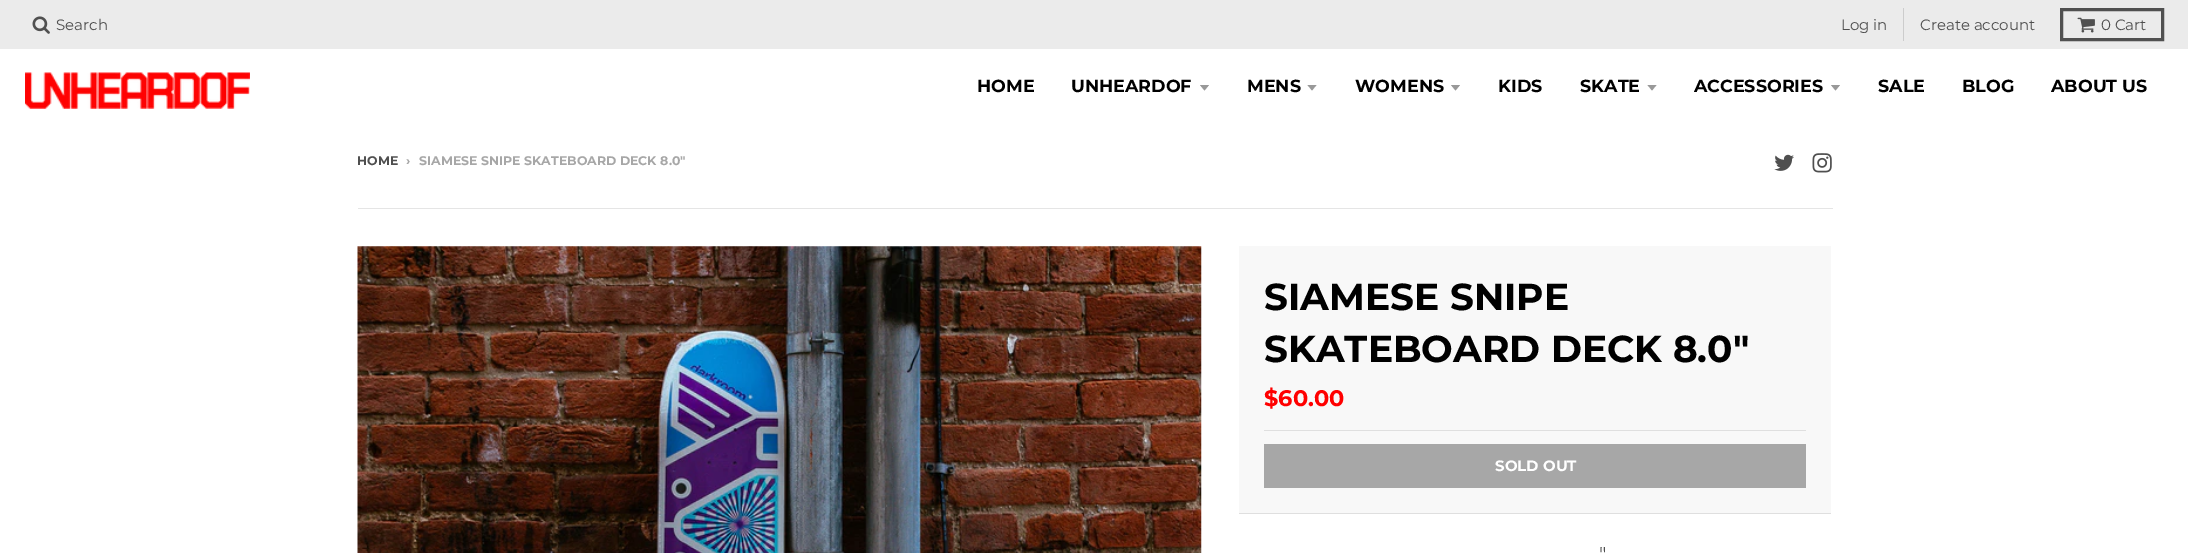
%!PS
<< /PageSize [2188 553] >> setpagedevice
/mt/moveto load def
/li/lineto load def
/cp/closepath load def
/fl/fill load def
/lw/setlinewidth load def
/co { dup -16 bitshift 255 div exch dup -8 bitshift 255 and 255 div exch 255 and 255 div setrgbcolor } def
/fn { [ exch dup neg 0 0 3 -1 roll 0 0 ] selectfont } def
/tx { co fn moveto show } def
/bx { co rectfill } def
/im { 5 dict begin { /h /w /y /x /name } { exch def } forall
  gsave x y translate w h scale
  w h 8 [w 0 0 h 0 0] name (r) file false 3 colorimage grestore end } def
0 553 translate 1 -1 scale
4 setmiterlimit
0 0 2188 553 16#FFFFFF bx
0 0 2188 49 16#EBEBEB bx
(media/1.raw) 32 16 18 18 im
1903 8 1 33 16#CCCCCC bx
16#505050 co
3 lw
2061.5 9.5 101 30 rectstroke
(media/2.raw) 2077 17 18 16 im
(media/3.raw) 25 72 225 37 im
16#999999 co
1200 85 mt 1204.5 90.5 li 1209 85 li cp fl
1307.5 85 mt 1312 90.5 li 1316.5 85 li cp fl
1451 85 mt 1455.5 90.5 li 1460 85 li cp fl
1647.5 85 mt 1652 90.5 li 1656.5 85 li cp fl
1831 85 mt 1835.5 90.5 li 1840 85 li cp fl
(media/4.raw) 1774 154 20 17 im
(media/5.raw) 1812 153 20 20 im
358 208 1475 1 16#E5E5E5 bx
(media/6.raw) 357 246 845 307 im
1239 246 592 267 16#F8F8F8 bx
1239 513 592 1 16#DFDFDF bx
1264 430 542 1 16#DFDFDF bx
1264 444 542 44 16#A7A7A7 bx
(Search) 56 30 /Montserrat-Regular 15 16#4F4F4F tx
(Log in) 1841 30 /Montserrat-Regular 15 16#4F4F4F tx
(Create account) 1920 30 /Montserrat-Regular 15 16#4F4F4F tx
(0 Cart) 2101 30 /Montserrat-Regular 15 16#4F4F4F tx
(HOME) 977 92 /Montserrat-Bold 17.5 16#000000 tx
(UNHEARDOF) 1071 92 /Montserrat-Bold 17.5 16#000000 tx
(MENS) 1247 92 /Montserrat-Bold 17.5 16#000000 tx
(WOMENS) 1355 92 /Montserrat-Bold 17.5 16#000000 tx
(KIDS) 1498 92 /Montserrat-Bold 17.5 16#000000 tx
(SKATE) 1580 92 /Montserrat-Bold 17.5 16#000000 tx
(ACCESSORIES) 1694 92 /Montserrat-Bold 17.5 16#000000 tx
(SALE) 1878 92 /Montserrat-Bold 17.5 16#000000 tx
(BLOG) 1962 92 /Montserrat-Bold 17.5 16#000000 tx
(ABOUT US) 2051 92 /Montserrat-Bold 17.5 16#000000 tx
(HOME) 357 165 /Montserrat-Bold 12.5 16#4F4F4F tx
(›) 406 165 /Montserrat-Bold 12.5 16#A7A7A7 tx
(SIAMESE SNIPE SKATEBOARD DECK 8.0") 419 165 /Montserrat-Bold 12.5 16#A7A7A7 tx
(SIAMESE SNIPE) 1264 310 /Montserrat-Bold 37.5 16#000000 tx
(SKATEBOARD DECK 8.0") 1264 362 /Montserrat-Bold 37.5 16#000000 tx
($60.00) 1264 406 /Montserrat-Bold 22.5 16#FF0000 tx
(SOLD OUT) 1495 471 /Montserrat-Bold 15 16#FFFFFF tx
(") 1599 561 /Montserrat-Regular 20 16#4F4F4F tx
showpage
